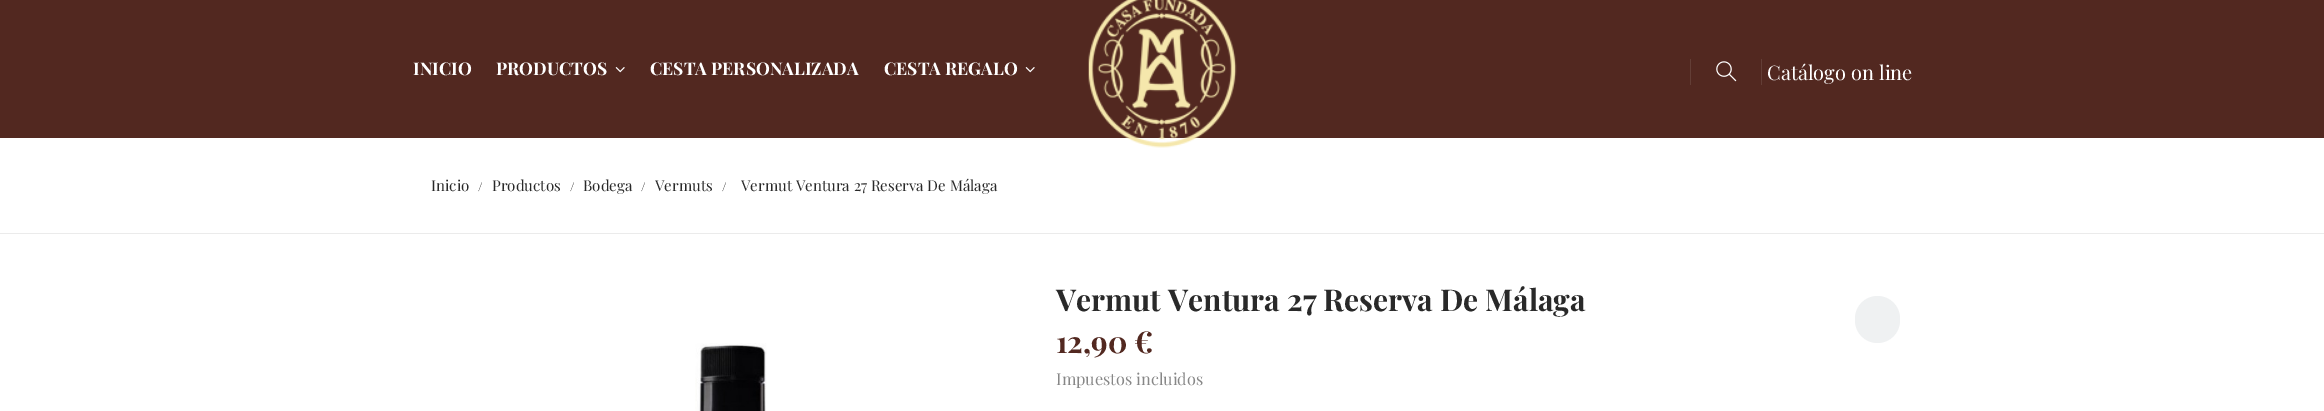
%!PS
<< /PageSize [2324 411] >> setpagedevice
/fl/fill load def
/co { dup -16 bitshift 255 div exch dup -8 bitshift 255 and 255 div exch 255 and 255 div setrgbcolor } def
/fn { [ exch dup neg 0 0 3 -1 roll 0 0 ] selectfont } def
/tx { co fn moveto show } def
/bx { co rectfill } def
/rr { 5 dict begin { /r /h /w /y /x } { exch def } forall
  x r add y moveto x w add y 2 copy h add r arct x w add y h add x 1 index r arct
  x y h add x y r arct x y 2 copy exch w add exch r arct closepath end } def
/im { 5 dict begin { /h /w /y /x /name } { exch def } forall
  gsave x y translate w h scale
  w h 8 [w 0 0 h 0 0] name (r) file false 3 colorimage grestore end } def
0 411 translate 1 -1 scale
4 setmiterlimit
0 0 2324 411 16#FFFFFF bx
0 0 2324 138 16#522820 bx
(media/1.raw) 1088 0 149 148 im
(media/2.raw) 615 67 10 6 im
(media/2.raw) 1025 67 10 6 im
1690 59 1 26 16#633E36 bx
(media/3.raw) 1716 61 21 21 im
1761 59 1 26 16#633E36 bx
0 233 2324 1 16#EBEBEB bx
(media/4.raw) 695 343 72 68 im
16#EFF1F2 co
1855 296 45 47 22.5 rr fl
(INICIO) 413 75 /PlayfairDisplay-Bold 17.5 16#FFFFFF tx
(PRODUCTOS) 496 75 /PlayfairDisplay-Bold 17.5 16#FFFFFF tx
(CESTA PERSONALIZADA) 650 75 /PlayfairDisplay-Bold 17.5 16#FFFFFF tx
(CESTA REGALO) 884 75 /PlayfairDisplay-Bold 17.5 16#FFFFFF tx
(Catálogo on line) 1767 80 /PlayfairDisplay-Regular 20 16#FFFFFF tx
(Inicio) 431 191 /PlayfairDisplay-Regular 15 16#292929 tx
(/) 478 191 /PlayfairDisplay-Regular 12 16#292929 tx
(Productos) 492 191 /PlayfairDisplay-Regular 15 16#292929 tx
(/) 570 191 /PlayfairDisplay-Regular 12 16#292929 tx
(Bodega) 583 191 /PlayfairDisplay-Regular 15 16#292929 tx
(/) 641 191 /PlayfairDisplay-Regular 12 16#292929 tx
(Vermuts) 655 191 /PlayfairDisplay-Regular 15 16#292929 tx
(/) 722 191 /PlayfairDisplay-Regular 12 16#292929 tx
(Vermut Ventura 27 Reserva De Málaga) 741 191 /PlayfairDisplay-Regular 15 16#292929 tx
(Vermut Ventura 27 Reserva De Málaga) 1056 311 /PlayfairDisplay-Bold 30 16#292929 tx
(12,90 €) 1056 353 /PlayfairDisplay-Bold 30 16#522820 tx
(Impuestos incluidos) 1056 385 /PlayfairDisplay-Regular 16.25 16#878787 tx
showpage
